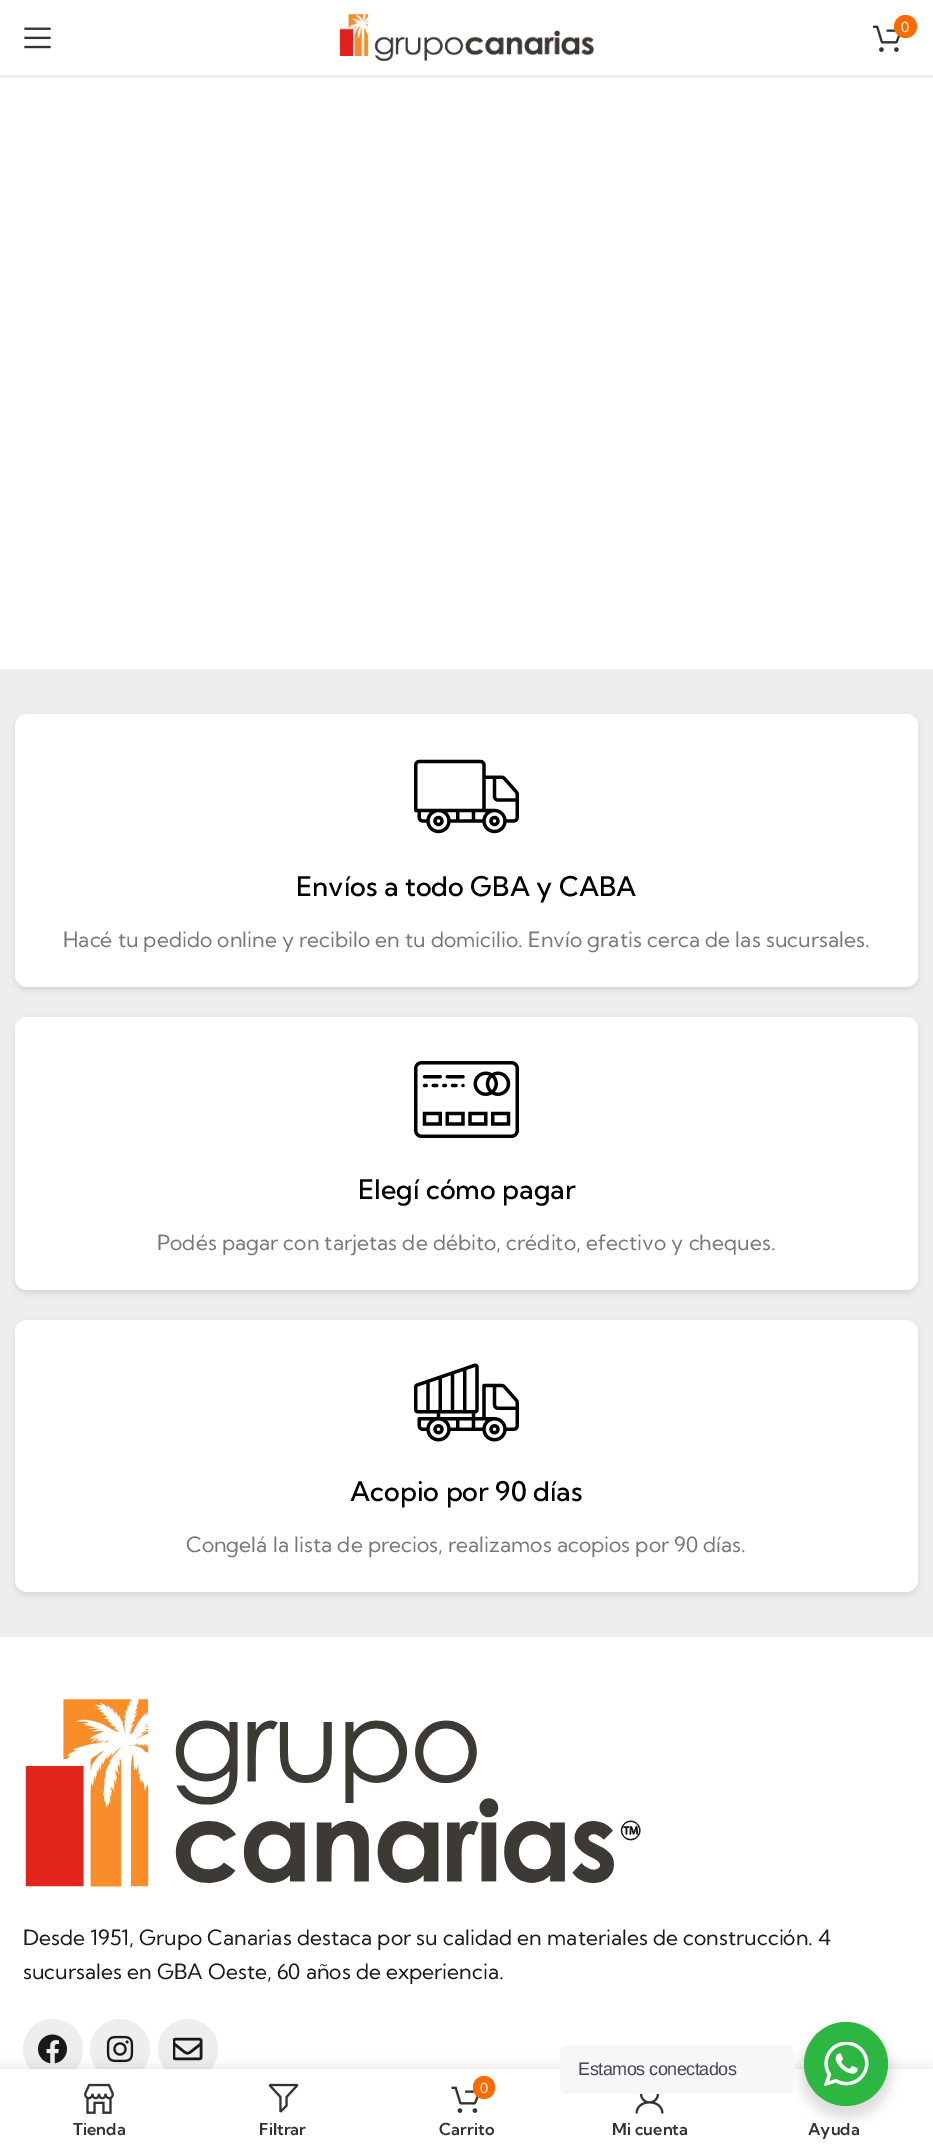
%!PS
<< /PageSize [933 2151] /PageUsesTransparency true >> setpagedevice
/mt/moveto load def
/fl/fill load def
/gs/gsave load def
/gr/grestore load def
/co { dup -16 bitshift 255 div exch dup -8 bitshift 255 and 255 div exch 255 and 255 div setrgbcolor } def
/fn { [ exch dup neg 0 0 3 -1 roll 0 0 ] selectfont } def
/tx { co fn moveto show } def
/bx { co rectfill } def
/al { dup .setfillconstantalpha .setstrokeconstantalpha } def
/ci { newpath 0 360 arc closepath } def
/rr { 5 dict begin { /r /h /w /y /x } { exch def } forall
  x r add y moveto x w add y 2 copy h add r arct x w add y h add x 1 index r arct
  x y h add x y r arct x y 2 copy exch w add exch r arct closepath end } def
/sh { 12 dict begin { /a /b /q /h /w /y /x } { exch def } forall gsave /was 0 def
  9 -2 -9 { dup b mul 4 div /e exch def 1 sub .425 mul 2.718 exch exp 1 add a .99 .min exch div /now exch def
    1 1 now sub 1 was sub div sub al /was now def
    w h .min e 2 mul add 0 gt { x e sub y e sub w e 2 mul add h e 2 mul add
      q e add b .6 mul add w h .min 2 div e add .min 0 .max rr fill } if } for grestore end } def
/im { 5 dict begin { /h /w /y /x /name } { exch def } forall
  gsave x y translate w h scale
  w h 8 [w 0 0 h 0 0] name (r) file false 3 colorimage grestore end } def
0 .pushpdf14devicefilter
0 2151 translate 1 -1 scale
4 setmiterlimit
0 0 933 2151 16#FFFFFF bx
gs
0 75 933 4 rectclip
16#000000 co
0 2 933 75 0 2 .1 sh
gr
(media/1.raw) 24 27 27 22 im
(media/2.raw) 339 14 255 47 im
(media/3.raw) 873 25 28 27 im
16#FF6A00 co
905.5 26.5 11.5 ci fl
0 669 933 968 16#EEEEEE bx
16#000000 co
15 717 903 273 12 3 .1 sh
16#FFFFFF co
15 714 903 273 12 rr fl
(media/4.raw) 414 759 105 75 im
16#000000 co
15 1020 903 273 12 3 .1 sh
16#FFFFFF co
15 1017 903 273 12 rr fl
(media/5.raw) 414 1061 105 77 im
16#000000 co
15 1323 903 272 12 3 .1 sh
16#FFFFFF co
15 1320 903 272 12 rr fl
(media/6.raw) 414 1363 105 79 im
(media/7.raw) 25 1699 616 188 im
16#EEEEEE co
53 2049 30 ci fl
(media/8.raw) 38 2034 29 30 im
120 2049 30 ci fl
(media/9.raw) 106 2035 28 28 im
188 2049 30 ci fl
(media/10.raw) 173 2037 30 24 im
16#000000 co
0 2069 933 82 0 7 .12 sh
0 2069 933 82 16#FFFFFF bx
16#000000 co
801 2028 90 90 45 6 .14 sh
16#F5F7F9 co
560 2045 234 49 6 rr fl
16#2DB742 co
846 2064 42 ci fl
(media/11.raw) 824 2042 45 45 im
(media/12.raw) 84 2083 30 31 im
(media/13.raw) 268 2083 31 30 im
(media/14.raw) 451 2086 28 27 im
16#FF6A00 co
473 2076 22 23 11 rr fl
(media/15.raw) 635 2094 29 20 im
(0) 901 32 /KumbhSans-Regular 14 16#FFFFFF tx
(Envíos a todo GBA y CABA) 296 896 /KumbhSans-Medium 27 16#000000 tx
(Hacé tu pedido online y recibilo en tu domicilio. Envío gratis cerca de las sucursales.) 63 947 /KumbhSans-Regular 21 16#777777 tx
(Elegí cómo pagar) 358 1199 /KumbhSans-Medium 27 16#000000 tx
(Podés pagar con tarjetas de débito, crédito, efectivo y cheques.) 157 1250 /KumbhSans-Regular 21 16#777777 tx
(Acopio por 90 días) 350 1501 /KumbhSans-Medium 27 16#000000 tx
(Congelá la lista de precios, realizamos acopios por 90 días.) 186 1552 /KumbhSans-Regular 21 16#777777 tx
(Desde 1951, Grupo Canarias destaca por su calidad en materiales de construcción. 4) 23 1945 /KumbhSans-Regular 21 16#191919 tx
(sucursales en GBA Oeste, 60 años de experiencia.) 23 1979 /KumbhSans-Regular 21 16#191919 tx
/LiberationSans-Regular 18 fn
16#43474E co
578 2075 mt -.5 0 (Estamos conectados) ashow
(Tienda) 73 2135 /KumbhSans-SemiBold 16.5 16#333333 tx
(Filtrar) 259 2135 /KumbhSans-SemiBold 16.5 16#333333 tx
(0) 480 2093 /KumbhSans-Regular 14 16#FFFFFF tx
(Carrito) 439 2135 /KumbhSans-SemiBold 16.5 16#333333 tx
(Mi cuenta) 612 2135 /KumbhSans-SemiBold 16.5 16#333333 tx
(Ayuda) 808 2135 /KumbhSans-SemiBold 16.5 16#333333 tx
.poppdf14devicefilter showpage
